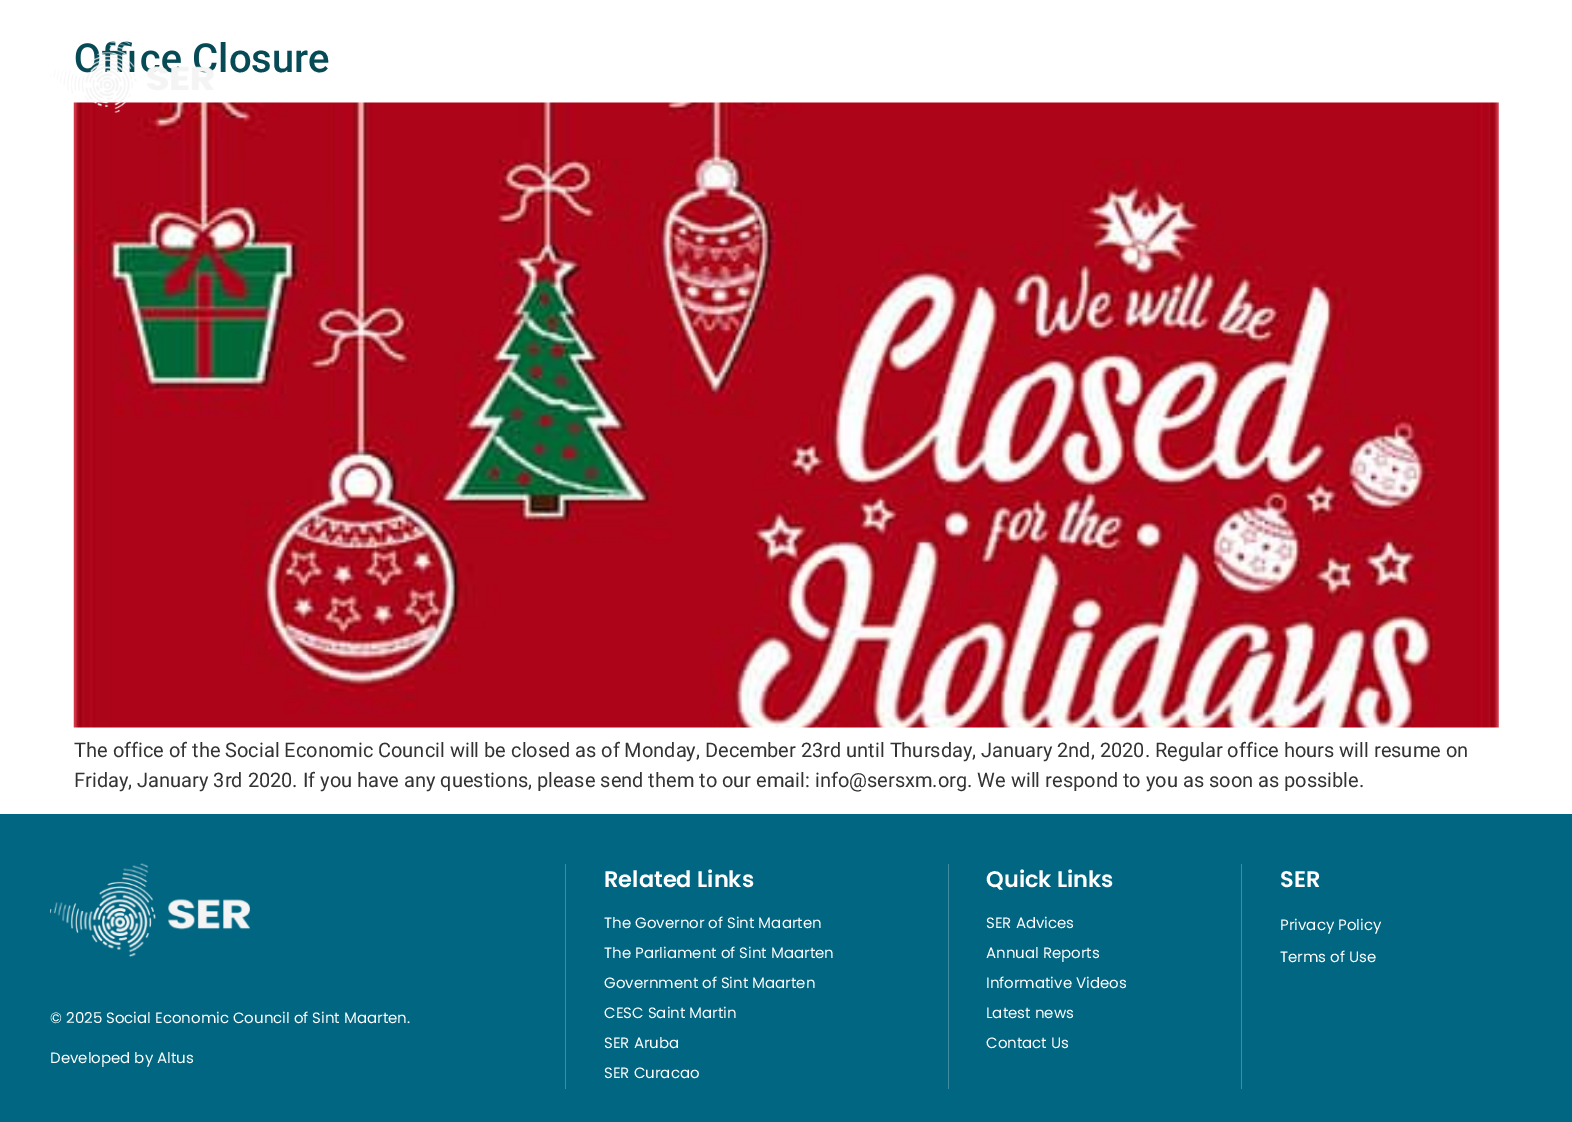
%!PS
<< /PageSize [1572 1122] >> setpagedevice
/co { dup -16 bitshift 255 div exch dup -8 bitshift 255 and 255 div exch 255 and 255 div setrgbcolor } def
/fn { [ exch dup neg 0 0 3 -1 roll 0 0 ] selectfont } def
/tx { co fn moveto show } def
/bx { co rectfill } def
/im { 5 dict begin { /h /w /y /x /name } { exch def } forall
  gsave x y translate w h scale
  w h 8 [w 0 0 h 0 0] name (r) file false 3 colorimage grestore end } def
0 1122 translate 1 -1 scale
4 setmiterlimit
0 0 1572 1122 16#FFFFFF bx
(media/2.raw) 73 102 1426 626 im
0 814 1572 308 16#006682 bx
948 864 1 225 16#408CA1 bx
565 864 1 225 16#408CA1 bx
1241 864 1 225 16#408CA1 bx
(media/3.raw) 50 863 200 94 im
(Office Closure) 74 72 /Roboto-Medium 40 16#064A55 tx
(media/1.raw) 50 38 164 75 im
(The office of the Social Economic Council will be closed as of Monday, December 23rd until Thursday, January 2nd, 2020. Regular office hours will resume on) 74 757 /Roboto-Regular 20 16#333333 tx
(Friday, January 3rd 2020. If you have any questions, please send them to our email: info@sersxm.org. We will respond to you as soon as possible.) 74 787 /Roboto-Regular 20 16#333333 tx
(Related Links) 604 887 /Poppins-SemiBold 22.5 16#FFFFFF tx
(The Governor of Sint Maarten) 604 928 /Poppins-Regular 15 16#FFFFFF tx
(The Parliament of Sint Maarten) 604 958 /Poppins-Regular 15 16#FFFFFF tx
(Government of Sint Maarten) 604 988 /Poppins-Regular 15 16#FFFFFF tx
(CESC Saint Martin) 604 1018 /Poppins-Regular 15 16#FFFFFF tx
(SER Aruba) 604 1048 /Poppins-Regular 15 16#FFFFFF tx
(SER Curacao) 604 1078 /Poppins-Regular 15 16#FFFFFF tx
(Quick Links) 986 887 /Poppins-SemiBold 22.5 16#FFFFFF tx
(SER Advices) 986 928 /Poppins-Regular 15 16#FFFFFF tx
(Annual Reports) 986 958 /Poppins-Regular 15 16#FFFFFF tx
(Informative Videos) 986 988 /Poppins-Regular 15 16#FFFFFF tx
(Latest news) 986 1018 /Poppins-Regular 15 16#FFFFFF tx
(Contact Us) 986 1048 /Poppins-Regular 15 16#FFFFFF tx
(SER) 1280 887 /Poppins-SemiBold 22.5 16#FFFFFF tx
(Privacy Policy) 1280 930 /Poppins-Regular 15 16#FFFFFF tx
(Terms of Use) 1280 962 /Poppins-Regular 15 16#FFFFFF tx
(© 2025 Social Economic Council of Sint Maarten.) 50 1023 /Poppins-Regular 15 16#FFFFFF tx
(Developed by Altus) 50 1063 /Poppins-Regular 15 16#FFFFFF tx
showpage
